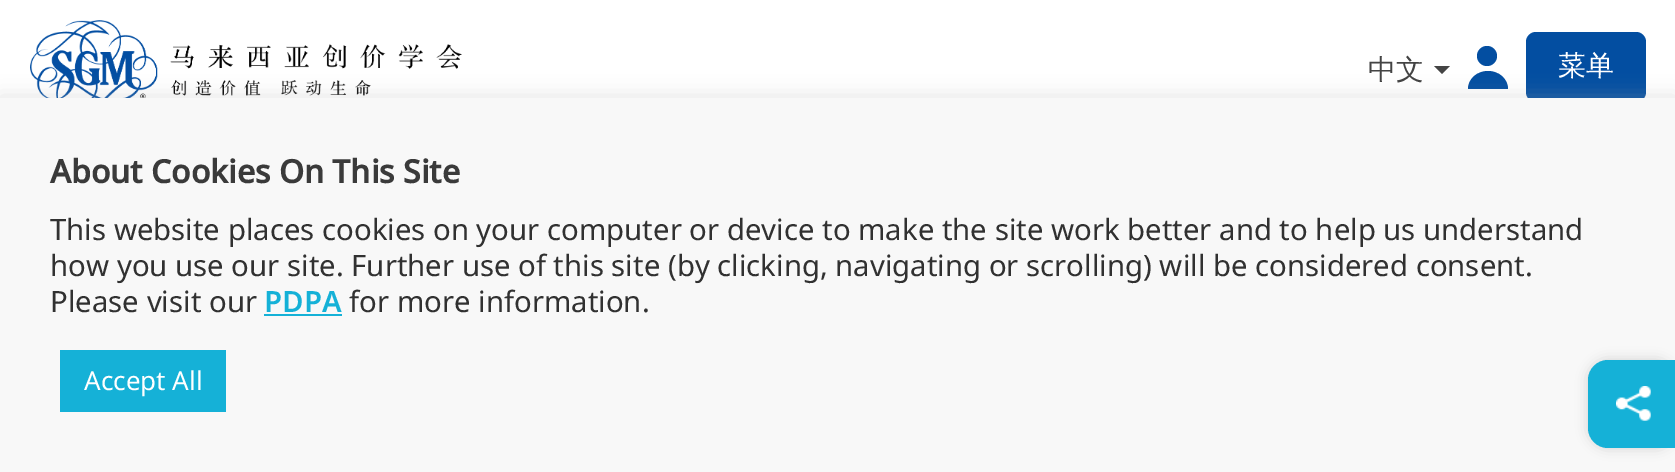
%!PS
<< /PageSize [1675 472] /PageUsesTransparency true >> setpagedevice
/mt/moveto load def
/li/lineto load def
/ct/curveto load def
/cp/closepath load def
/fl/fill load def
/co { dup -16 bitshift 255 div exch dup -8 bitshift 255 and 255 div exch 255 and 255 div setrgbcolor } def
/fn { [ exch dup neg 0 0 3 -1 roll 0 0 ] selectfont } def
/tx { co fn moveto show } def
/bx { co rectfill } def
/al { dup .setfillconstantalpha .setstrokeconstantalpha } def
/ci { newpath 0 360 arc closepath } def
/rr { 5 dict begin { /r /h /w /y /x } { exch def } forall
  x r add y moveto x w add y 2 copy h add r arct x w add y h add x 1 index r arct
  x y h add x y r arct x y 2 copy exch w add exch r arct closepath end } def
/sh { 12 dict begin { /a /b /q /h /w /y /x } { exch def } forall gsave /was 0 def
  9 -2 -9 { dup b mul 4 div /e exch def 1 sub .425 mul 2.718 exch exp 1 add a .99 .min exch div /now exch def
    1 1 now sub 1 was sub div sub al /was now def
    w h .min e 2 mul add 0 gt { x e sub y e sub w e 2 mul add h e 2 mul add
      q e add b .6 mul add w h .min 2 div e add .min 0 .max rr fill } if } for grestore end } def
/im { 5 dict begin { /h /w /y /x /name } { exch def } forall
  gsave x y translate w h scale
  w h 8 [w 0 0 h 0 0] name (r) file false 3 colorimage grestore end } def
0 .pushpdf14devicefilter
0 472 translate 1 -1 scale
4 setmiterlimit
0 0 1675 472 16#FFFFFF bx
(media/1.raw) 30 20 432 78 im
16#444444 co
1434 66 mt 1450 66 li 1442 74 li cp fl
16#034EA1 co
1487 56 10 ci fl
1488 71 mt 1477 71 1468 79 1468 89 ct 1508 89 li 1508 79 1499 71 1488 71 ct cp fl
1526 32 120 70 10 rr fl
16#ACABAB co
0 96 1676 374 0 10 .3 sh
0 98 1675 374 16#F8F8F8 bx
264 314 78 2 16#15B1D7 bx
60 350 166 62 16#15B1D7 bx
16#000000 co
1588 360 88 88 20 6 .15 sh
16#15B1D7 co
1608 360 mt 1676 360 li 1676 448 li 1608 448 li 1597 448 1588 439 1588 428 ct 1588 380 li 1588 369 1597 360 1608 360 ct cp fl
(media/2.raw) 1616 386 35 35 im
(中文) 1368 79 /WenQuanYiZenHei-Medium 28 16#444444 tx
(菜单) 1558 75 /WenQuanYiZenHei-Medium 28 16#FFFFFF tx
(About Cookies On This Site) 50 183 /NotoSans-Bold 32 16#3A3A3A tx
(This website places cookies on your computer or device to make the site work better and to help us understand) 50 240 /NotoSans-Regular 29.33 16#313131 tx
(how you use our site. Further use of this site \(by clicking, navigating or scrolling\) will be considered consent.) 50 276 /NotoSans-Regular 29.33 16#313131 tx
(Please visit our) 50 312 /NotoSans-Regular 29.33 16#313131 tx
(PDPA) 264 312 /NotoSans-SemiBold 29.33 16#15B1D7 tx
(for more information.) 349 312 /NotoSans-Regular 29.33 16#313131 tx
(Accept All) 84 390 /NotoSans-Regular 26 16#FFFFFF tx
.poppdf14devicefilter showpage
